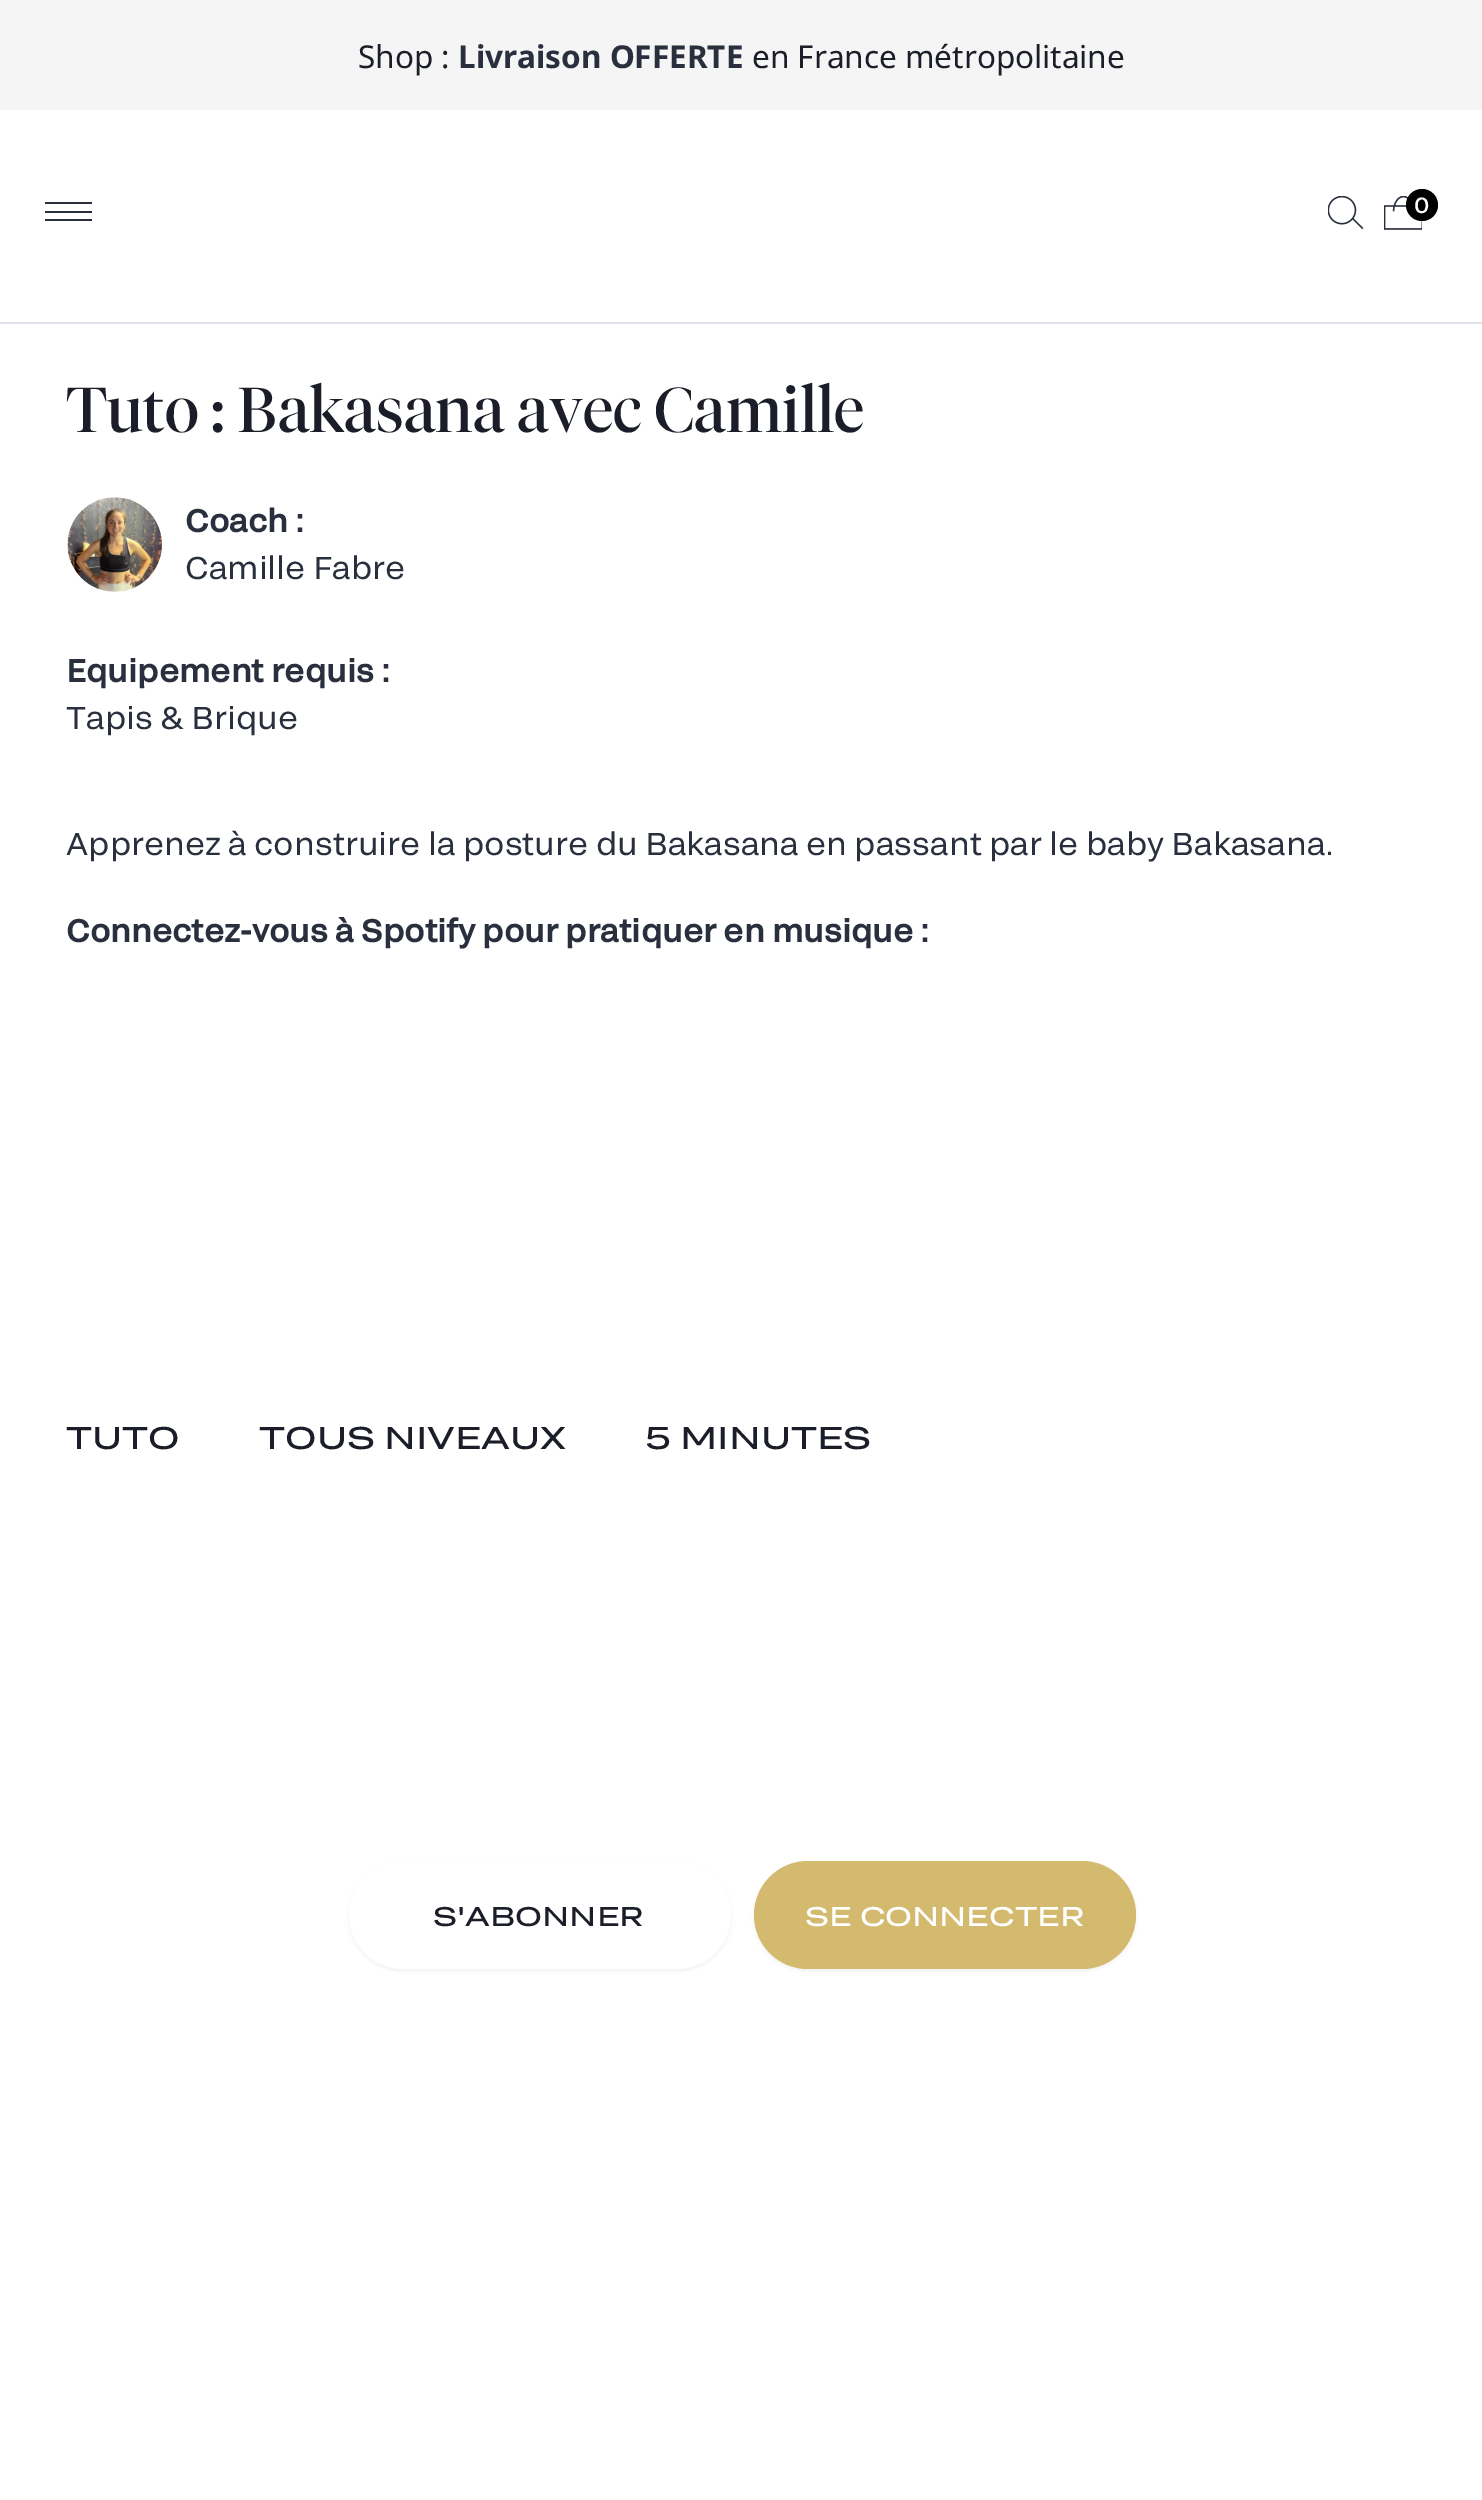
%!PS
<< /PageSize [1482 2500] /PageUsesTransparency true >> setpagedevice
/mt/moveto load def
/li/lineto load def
/cp/closepath load def
/fl/fill load def
/co { dup -16 bitshift 255 div exch dup -8 bitshift 255 and 255 div exch 255 and 255 div setrgbcolor } def
/fn { [ exch dup neg 0 0 3 -1 roll 0 0 ] selectfont } def
/tx { co fn moveto show } def
/bx { co rectfill } def
/al { dup .setfillconstantalpha .setstrokeconstantalpha } def
/ci { newpath 0 360 arc closepath } def
/rr { 5 dict begin { /r /h /w /y /x } { exch def } forall
  x r add y moveto x w add y 2 copy h add r arct x w add y h add x 1 index r arct
  x y h add x y r arct x y 2 copy exch w add exch r arct closepath end } def
/sh { 12 dict begin { /a /b /q /h /w /y /x } { exch def } forall gsave /was 0 def
  9 -2 -9 { dup b mul 4 div /e exch def 1 sub .425 mul 2.718 exch exp 1 add a .99 .min exch div /now exch def
    1 1 now sub 1 was sub div sub al /was now def
    w h .min e 2 mul add 0 gt { x e sub y e sub w e 2 mul add h e 2 mul add
      q e add b .6 mul add w h .min 2 div e add .min 0 .max rr fill } if } for grestore end } def
/im { 5 dict begin { /h /w /y /x /name } { exch def } forall
  gsave x y translate w h scale
  w h 8 [w 0 0 h 0 0] name (r) file false 3 colorimage grestore end } def
0 .pushpdf14devicefilter
0 2500 translate 1 -1 scale
4 setmiterlimit
0 0 1482 2500 16#FFFFFF bx
0 0 1482 110 16#F5F5F5 bx
0 322 1482 2 16#E0E3EB bx
16#292F3D co
92 204 mt 45 204 li 45 202 li 92 202 li cp 92 213 mt 45 213 li 45 211 li 92 211 li cp 92 221 mt 45 221 li 45 219 li 92 219 li cp eofill
(media/1.raw) 1328 196 36 34 im
(media/2.raw) 1384 196 38 34 im
16#000000 co
1422 205 16 ci fl
(media/3.raw) 67 497 95 95 im
349 1863 382 108 54 2 .05 sh
16#FFFFFF co
349 1861 382 108 54 rr fl
16#000000 co
754 1863 382 108 54 2 .05 sh
16#D3BA6F co
754 1861 382 108 54 rr fl
(Shop :) 358 68 /NotoSans-Regular 31.5 16#1B1E28 tx
(Livraison OFFERTE) 458 68 /NotoSans-Bold 31.5 16#292F3D tx
(en France métropolitaine) 752 68 /NotoSans-Regular 31.5 16#1B1E28 tx
(0) 1414 213 /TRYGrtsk-Medium 22 16#FFFFFF tx
(Tuto : Bakasana avec Camille) 66 432 /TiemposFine-Regular 63 16#1B1E28 tx
(Coach :) 185 532 /TRYGrtsk-Bold 31.5 16#292F3D tx
(Camille Fabre) 185 579 /TRYGrtsk-Regular 31.5 16#292F3D tx
(Equipement requis :) 66 682 /TRYGrtsk-Bold 31.5 16#292F3D tx
(Tapis & Brique) 66 729 /TRYGrtsk-Regular 31.5 16#292F3D tx
(Apprenez à construire la posture du Bakasana en passant par le baby Bakasana.) 66 855 /TRYGrtsk-Regular 31.5 16#292F3D tx
(Connectez-vous à Spotify pour pratiquer en musique :) 66 942 /TRYGrtsk-Bold 31.5 16#292F3D tx
(TUTO) 66 1449 /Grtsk-Medium 31.5 16#1B1E28 tx
(TOUS NIVEAUX) 259 1449 /Grtsk-Medium 31.5 16#1B1E28 tx
(5 MINUTES) 645 1449 /Grtsk-Medium 31.5 16#1B1E28 tx
(S'ABONNER) 433 1926 /Grtsk-Medium 27 16#1B1E28 tx
(SE CONNECTER) 805 1926 /Grtsk-Medium 27 16#FFFFFF tx
.poppdf14devicefilter showpage
